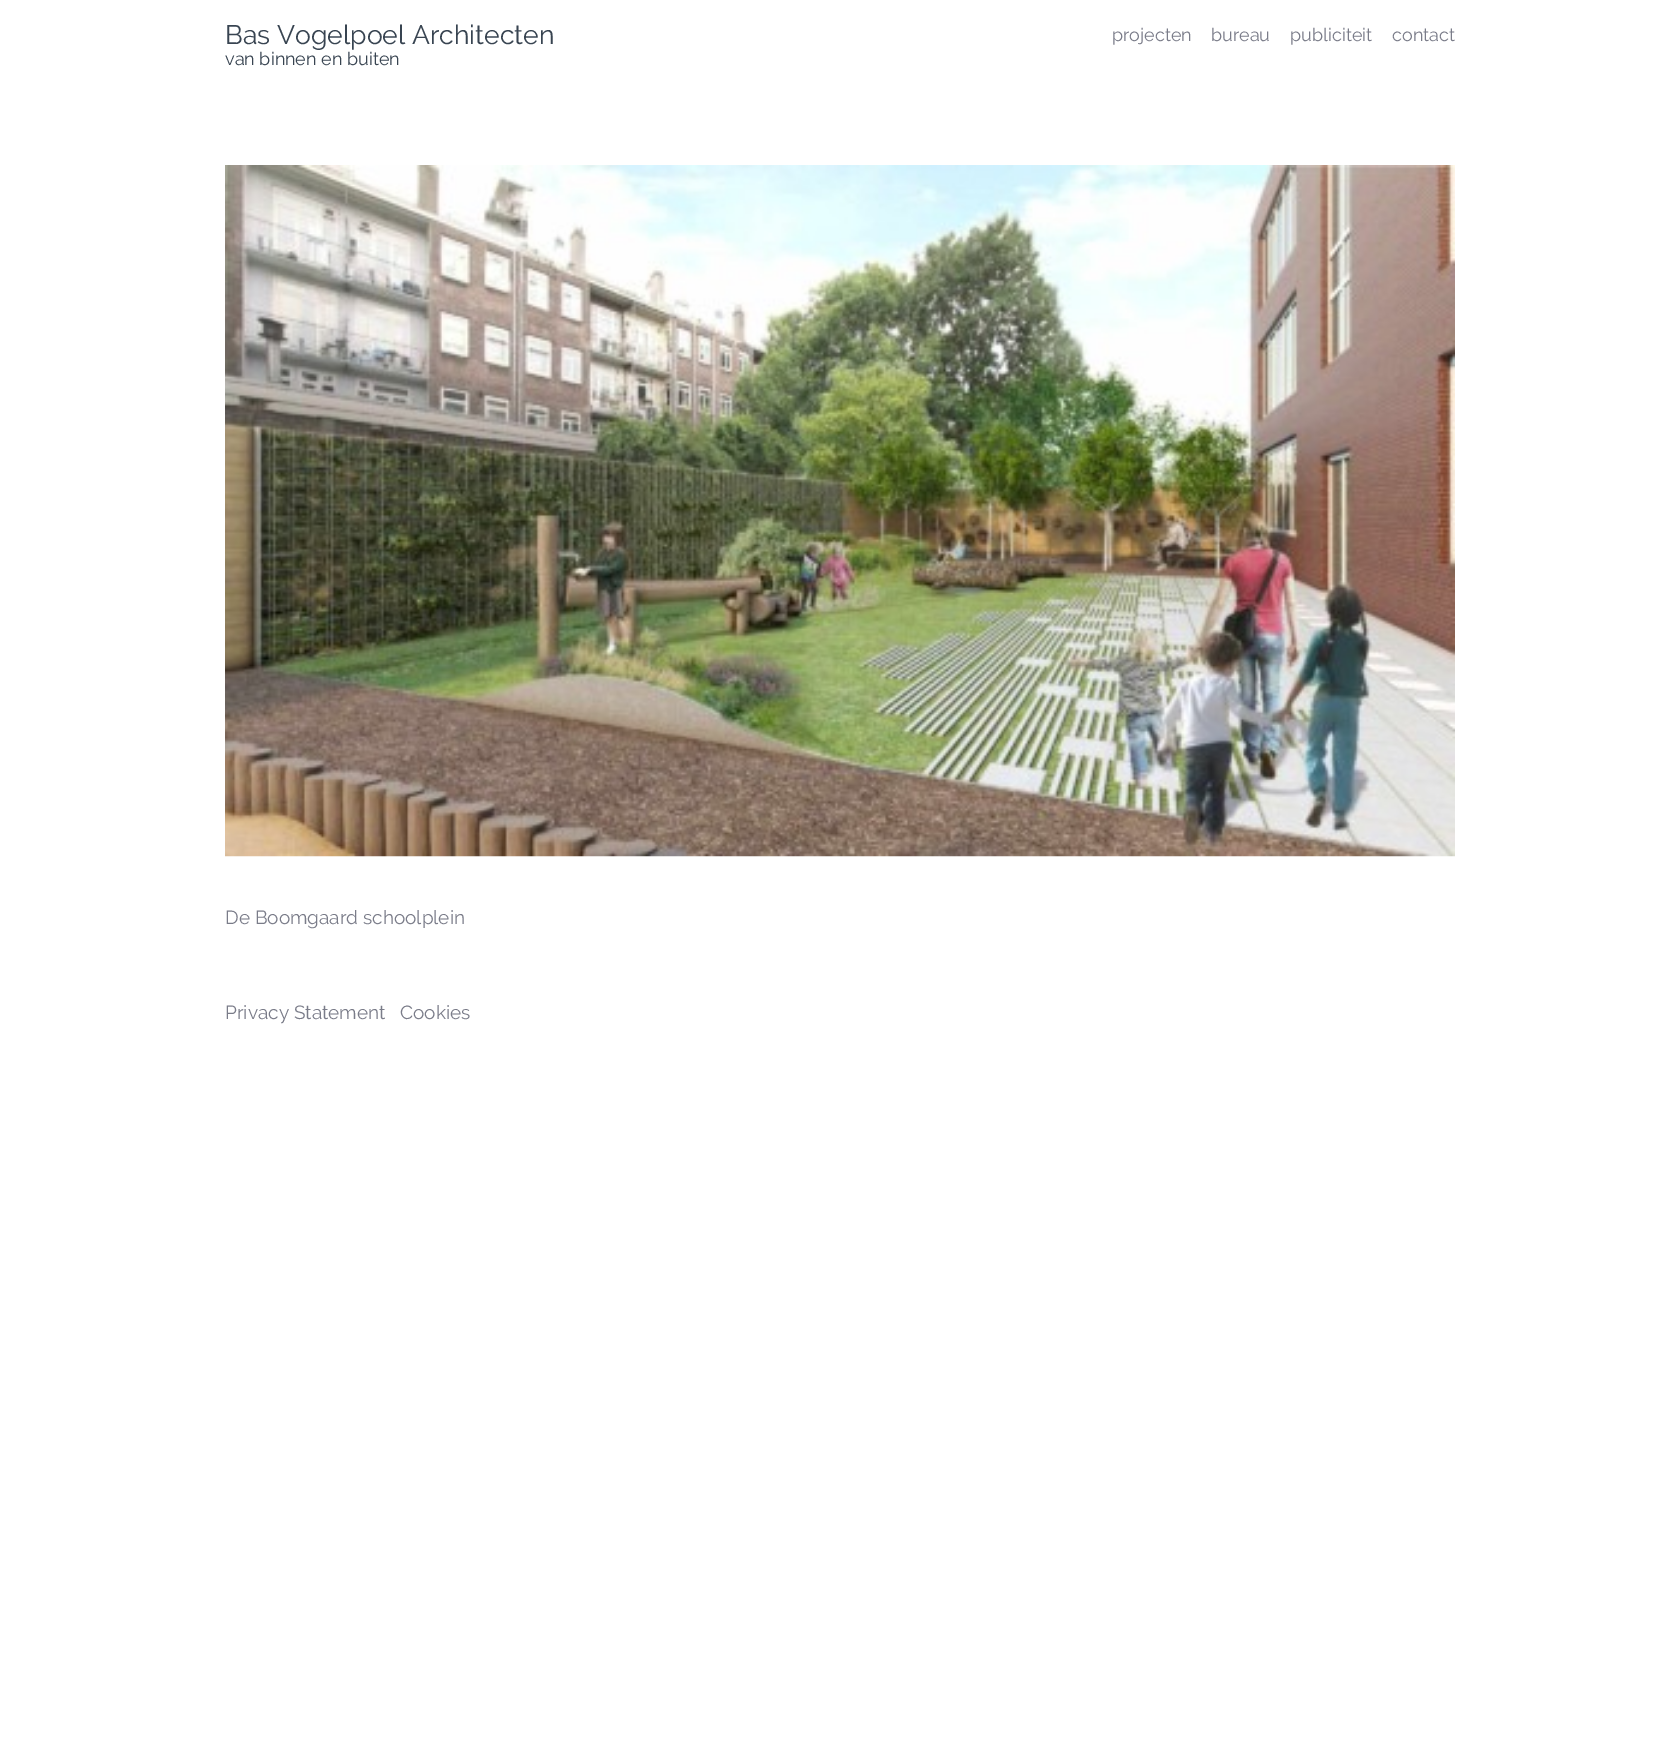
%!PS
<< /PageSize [1680 1750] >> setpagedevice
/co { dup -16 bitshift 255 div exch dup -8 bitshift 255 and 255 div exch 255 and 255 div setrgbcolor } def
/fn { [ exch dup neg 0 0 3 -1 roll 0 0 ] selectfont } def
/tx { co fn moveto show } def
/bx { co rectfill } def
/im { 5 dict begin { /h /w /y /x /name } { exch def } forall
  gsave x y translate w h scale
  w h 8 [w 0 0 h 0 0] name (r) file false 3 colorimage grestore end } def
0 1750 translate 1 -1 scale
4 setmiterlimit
0 0 1680 1750 16#FFFFFF bx
(media/1.raw) 225 165 1230 692 im
(Bas Vogelpoel Architecten) 225 44 /Raleway-Regular 26.6 16#384451 tx
(van binnen en buiten) 225 65 /Raleway-Regular 18 16#384451 tx
(projecten) 1112 41 /Raleway-Regular 18 16#7A7C89 tx
(bureau) 1211 41 /Raleway-Regular 18 16#7A7C89 tx
(publiciteit) 1290 41 /Raleway-Regular 18 16#7A7C89 tx
(contact) 1392 41 /Raleway-Regular 18 16#7A7C89 tx
(De Boomgaard schoolplein) 225 924 /Raleway-Regular 19 16#7A7C89 tx
(Privacy Statement) 225 1019 /Raleway-Regular 19 16#7A7C89 tx
(Cookies) 400 1019 /Raleway-Regular 19 16#7A7C89 tx
showpage
